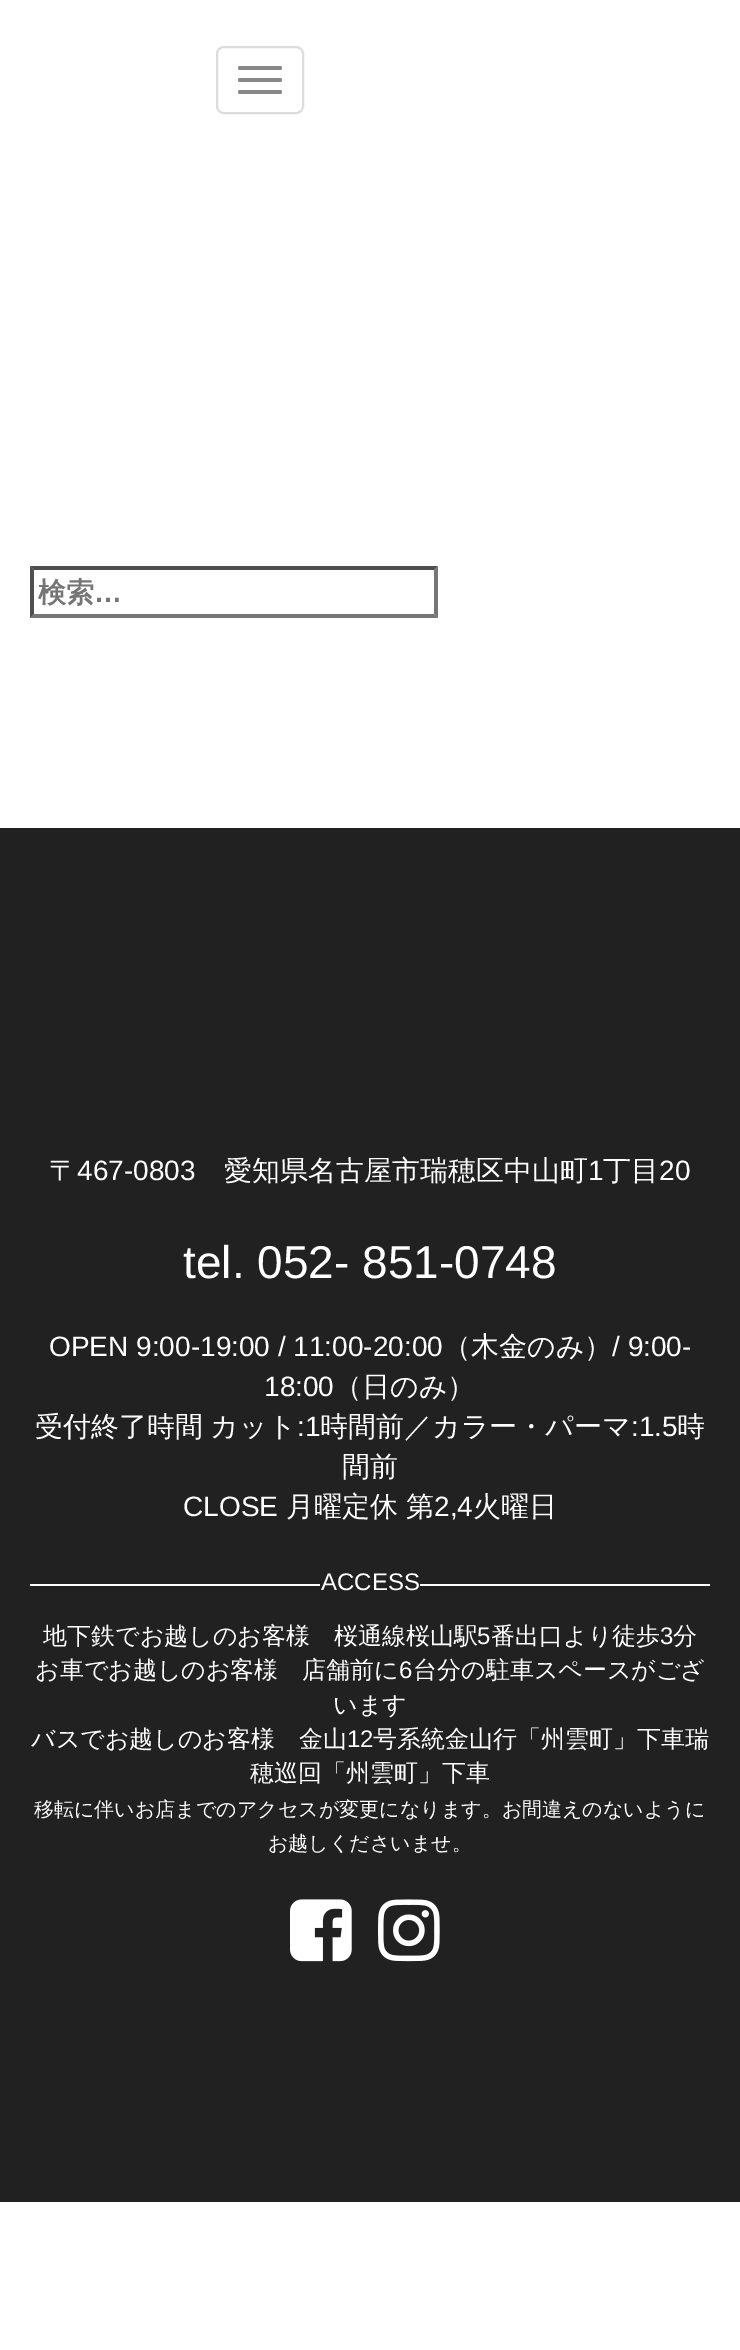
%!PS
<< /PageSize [740 2350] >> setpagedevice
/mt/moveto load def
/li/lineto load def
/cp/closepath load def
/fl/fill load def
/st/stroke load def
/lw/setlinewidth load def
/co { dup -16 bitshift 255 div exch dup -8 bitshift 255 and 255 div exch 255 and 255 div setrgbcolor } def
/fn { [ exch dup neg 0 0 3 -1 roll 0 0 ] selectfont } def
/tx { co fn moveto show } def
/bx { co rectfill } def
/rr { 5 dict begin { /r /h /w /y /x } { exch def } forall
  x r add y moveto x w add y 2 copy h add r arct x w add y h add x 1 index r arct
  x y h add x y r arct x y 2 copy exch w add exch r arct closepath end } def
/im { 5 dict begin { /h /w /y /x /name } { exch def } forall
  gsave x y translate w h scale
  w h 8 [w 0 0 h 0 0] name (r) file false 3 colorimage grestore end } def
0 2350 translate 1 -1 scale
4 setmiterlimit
0 0 740 2350 16#FFFFFF bx
16#DDDDDD co
2 lw
217 47 86 66 7 rr st
16#888888 co
238 66 44 4 2 rr fl
238 78 44 4 2 rr fl
238 90 44 4 2 rr fl
16#4F4F4F co
30 566 mt 438 566 li 434 570 li 34 570 li cp fl
16#767676 co
438 566 mt 438 618 li 434 614 li 434 570 li cp fl
438 618 mt 30 618 li 34 614 li 434 614 li cp fl
16#4F4F4F co
30 618 mt 30 566 li 34 570 li 34 614 li cp fl
0 828 740 1374 16#212121 bx
30 1584 290 2 16#FFFFFF bx
420 1584 290 2 16#FFFFFF bx
(media/1.raw) 290 1899 62 63 im
(media/2.raw) 378 1899 62 63 im
(検索) 38 602 /WenQuanYiZenHei-Bold 28 16#757575 tx
(…) 94 602 /LiberationSans-Bold 28 16#757575 tx
(〒) 49 1180 /WenQuanYiZenHei-Medium 28 16#FFFFFF tx
(467-0803) 77 1180 /LiberationSans-Regular 28 16#FFFFFF tx
(愛知県名古屋市瑞穂区中山町) 224 1180 /WenQuanYiZenHei-Medium 28 16#FFFFFF tx
(1) 588 1180 /LiberationSans-Regular 28 16#FFFFFF tx
(丁目) 603 1180 /WenQuanYiZenHei-Medium 28 16#FFFFFF tx
(20) 659 1180 /LiberationSans-Regular 28 16#FFFFFF tx
(tel. 052- 851-0748) 183 1278 /LiberationSans-Regular 46 16#FFFFFF tx
(OPEN 9:00-19:00 / 11:00-20:00) 49 1356 /LiberationSans-Regular 28 16#FFFFFF tx
(（木金のみ）) 443 1356 /WenQuanYiZenHei-Medium 28 16#FFFFFF tx
(/ 9:00-) 612 1356 /LiberationSans-Regular 28 16#FFFFFF tx
(18:00) 264 1396 /LiberationSans-Regular 28 16#FFFFFF tx
(（日のみ）) 334 1396 /WenQuanYiZenHei-Medium 28 16#FFFFFF tx
35 1436 mt -1 0 32 (受付終了時間 カット) widthshow
(:1) 297 1436 /LiberationSans-Regular 28 16#FFFFFF tx
(時間前／カラー・パーマ) 320 1436 /WenQuanYiZenHei-Medium 28 16#FFFFFF tx
(:1.5) 631 1436 /LiberationSans-Regular 28 16#FFFFFF tx
(時) 677 1436 /WenQuanYiZenHei-Medium 28 16#FFFFFF tx
(間前) 342 1476 /WenQuanYiZenHei-Medium 28 16#FFFFFF tx
(CLOSE) 183 1516 /LiberationSans-Regular 28 16#FFFFFF tx
(月曜定休 第) 286 1516 /WenQuanYiZenHei-Medium 28 16#FFFFFF tx
(2,4) 434 1516 /LiberationSans-Regular 28 16#FFFFFF tx
(火曜日) 473 1516 /WenQuanYiZenHei-Medium 28 16#FFFFFF tx
(ACCESS) 321 1590 /LiberationSans-Regular 24 16#FFFFFF tx
(地下鉄でお越しのお客様　桜通線桜山駅) 43 1644 /WenQuanYiZenHei-Medium 24 16#FFFFFF tx
(5) 477 1644 /LiberationSans-Regular 24 16#FFFFFF tx
(番出口より徒歩) 491 1644 /WenQuanYiZenHei-Medium 24 16#FFFFFF tx
(3) 660 1644 /LiberationSans-Regular 24 16#FFFFFF tx
(分) 673 1644 /WenQuanYiZenHei-Medium 24 16#FFFFFF tx
(お車でお越しのお客様　店舗前に) 35 1678 /WenQuanYiZenHei-Medium 24 16#FFFFFF tx
(6) 399 1678 /LiberationSans-Regular 24 16#FFFFFF tx
(台分の駐車スペースがござ) 413 1678 /WenQuanYiZenHei-Medium 24 16#FFFFFF tx
(います) 333 1713 /WenQuanYiZenHei-Medium 24 16#FFFFFF tx
(バスでお越しのお客様　金山) 31 1747 /WenQuanYiZenHei-Medium 24 16#FFFFFF tx
(12) 347 1747 /LiberationSans-Regular 24 16#FFFFFF tx
(号系統金山行「州雲町」下車瑞) 373 1747 /WenQuanYiZenHei-Medium 24 16#FFFFFF tx
(穂巡回「州雲町」下車) 250 1781 /WenQuanYiZenHei-Medium 24 16#FFFFFF tx
(移転に伴いお店までのアクセスが変更になります。お間違えのないように) 34 1816 /WenQuanYiZenHei-Medium 20 16#FFFFFF tx
(お越しくださいませ。) 268 1850 /WenQuanYiZenHei-Medium 20 16#FFFFFF tx
showpage
